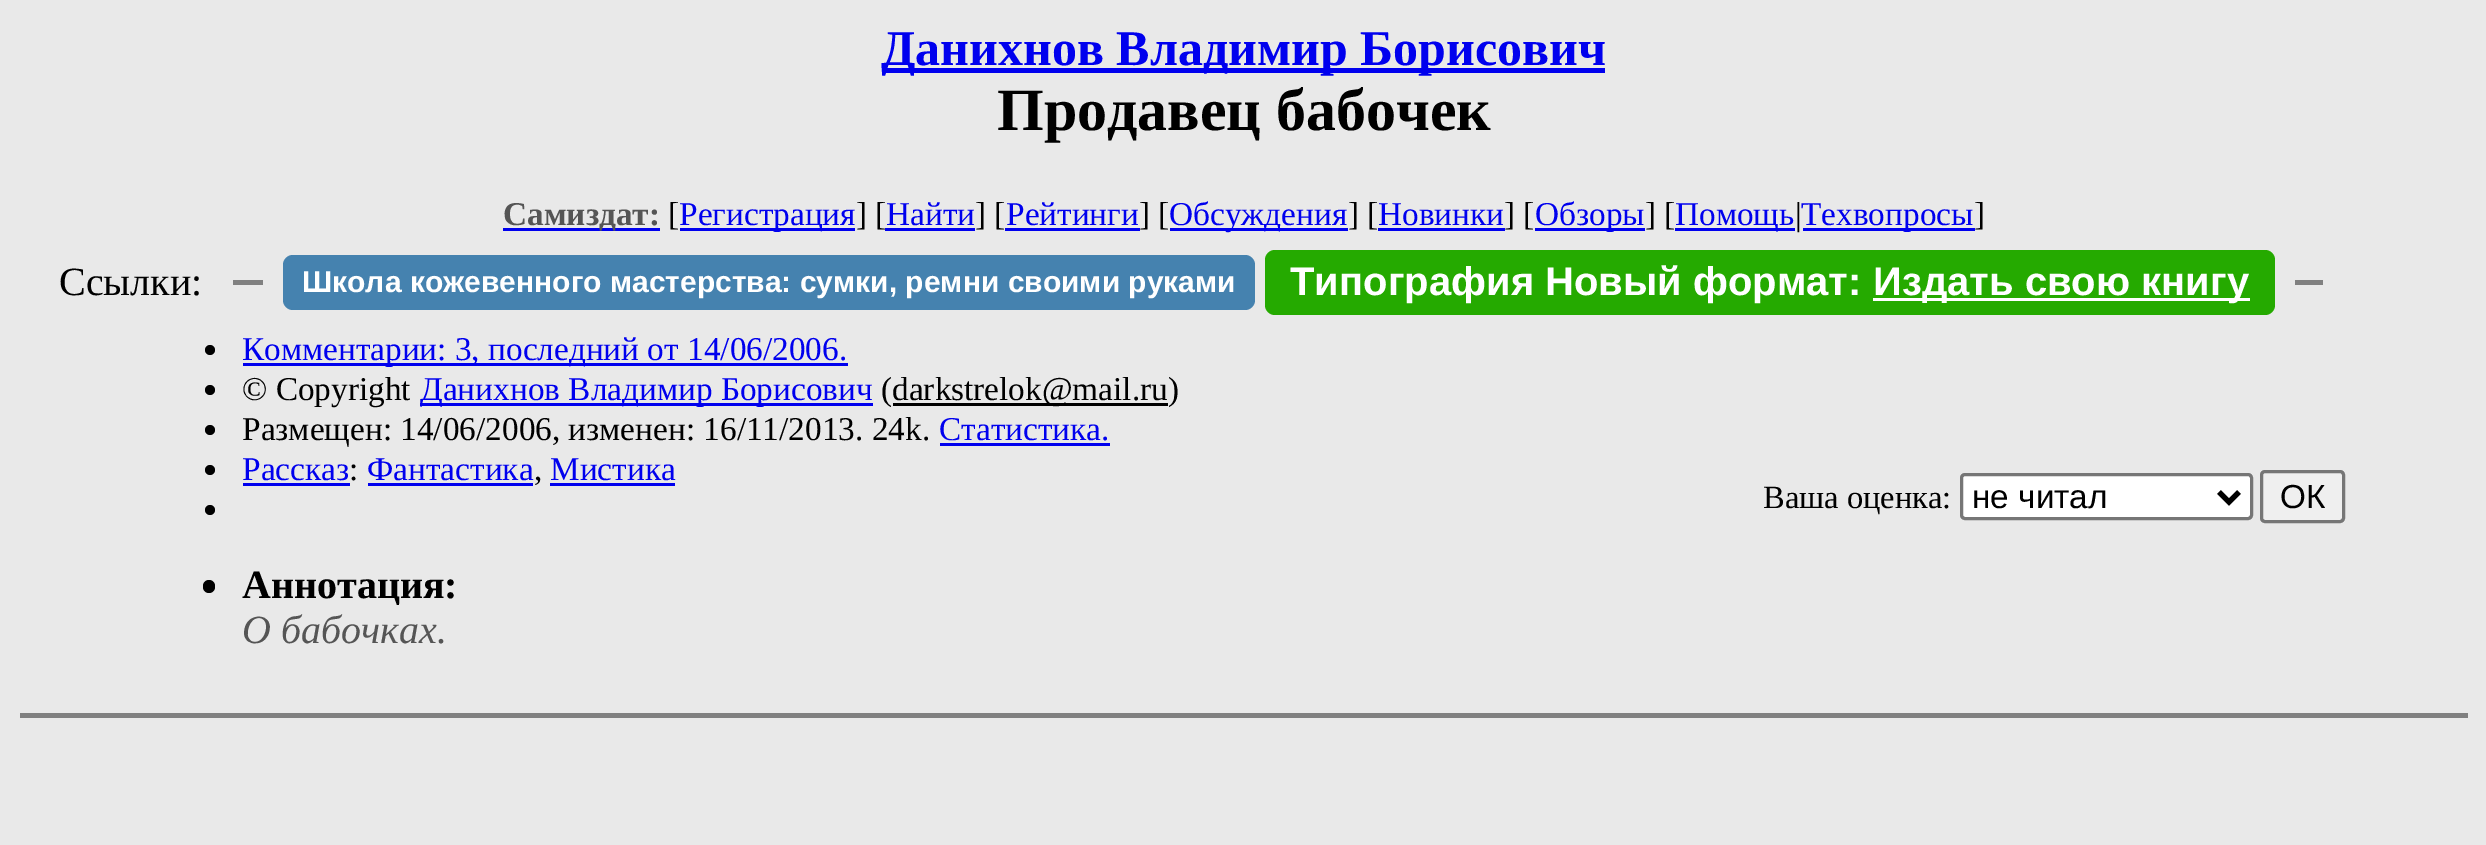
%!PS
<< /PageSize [2486 845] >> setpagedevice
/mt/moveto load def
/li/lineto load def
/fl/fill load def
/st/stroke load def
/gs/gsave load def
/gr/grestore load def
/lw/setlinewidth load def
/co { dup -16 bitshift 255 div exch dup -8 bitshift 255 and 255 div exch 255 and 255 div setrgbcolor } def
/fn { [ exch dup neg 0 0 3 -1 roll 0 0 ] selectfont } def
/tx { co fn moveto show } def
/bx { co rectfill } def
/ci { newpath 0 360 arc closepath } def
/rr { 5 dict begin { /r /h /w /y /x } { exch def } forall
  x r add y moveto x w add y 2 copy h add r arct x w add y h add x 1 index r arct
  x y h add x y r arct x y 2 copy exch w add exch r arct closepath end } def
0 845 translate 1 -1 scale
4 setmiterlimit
0 0 2486 845 16#E9E9E9 bx
883 68 722 5 16#0000EE bx
503 228 157 3 16#0000EE bx
680 228 175 3 16#0000EE bx
885 228 90 3 16#0000EE bx
1005 228 135 3 16#0000EE bx
1170 228 178 3 16#0000EE bx
1378 228 127 3 16#0000EE bx
1535 228 110 3 16#0000EE bx
1675 228 120 3 16#0000EE bx
1803 228 172 3 16#0000EE bx
233 280 30 5 16#808080 bx
16#4582AF co
283 255 972 55 10 rr fl
16#25AA00 co
1265 250 1010 65 10 rr fl
1873 298 377 3 16#FFFFFF bx
2295 280 28 5 16#808080 bx
16#000000 co
210 350 5 ci fl
243 363 605 3 16#0000EE bx
16#000000 co
210 390 5 ci fl
420 403 453 3 16#0000EE bx
893 403 275 3 16#000000 bx
210 430 5 ci fl
940 443 170 3 16#0000EE bx
16#000000 co
210 470 5 ci fl
243 483 107 3 16#0000EE bx
368 483 165 3 16#0000EE bx
550 483 125 3 16#0000EE bx
16#000000 co
210 510 5 ci fl
16#FFFFFF co
1961.5 474.5 290 44 3.5 rr gs fl gr
16#767676 co
3 lw
st
16#000000 co
5 lw
2219 492 mt 2229 502 li 2239 492 li st
16#EFEFEF co
2261.5 471.5 82 50 3.5 rr gs fl gr
16#767676 co
3 lw
st
16#000000 co
203 580 12 13 6 rr fl
20 713 2448 5 16#808080 bx
(Данихнов Владимир Борисович) 881 65 /LiberationSerif-Bold 50 16#0000EE tx
(Продавец бабочек) 997 130 /LiberationSerif-Bold 60 16#000000 tx
(Самиздат:) 503 225 /LiberationSerif-Bold 33.3 16#555555 tx
([) 668 225 /LiberationSerif-Regular 33.3 16#000000 tx
(Регистрация) 679 225 /LiberationSerif-Regular 33.3 16#0000EE tx
(] [) 856 225 /LiberationSerif-Regular 33.3 16#000000 tx
(Найти) 886 225 /LiberationSerif-Regular 33.3 16#0000EE tx
(] [) 975 225 /LiberationSerif-Regular 33.3 16#000000 tx
(Рейтинги) 1006 225 /LiberationSerif-Regular 33.3 16#0000EE tx
(] [) 1139 225 /LiberationSerif-Regular 33.3 16#000000 tx
(Обсуждения) 1169 225 /LiberationSerif-Regular 33.3 16#0000EE tx
(] [) 1348 225 /LiberationSerif-Regular 33.3 16#000000 tx
(Новинки) 1378 225 /LiberationSerif-Regular 33.3 16#0000EE tx
(] [) 1504 225 /LiberationSerif-Regular 33.3 16#000000 tx
(Обзоры) 1535 225 /LiberationSerif-Regular 33.3 16#0000EE tx
(] [) 1645 225 /LiberationSerif-Regular 33.3 16#000000 tx
(Помощь) 1675 225 /LiberationSerif-Regular 33.3 16#0000EE tx
(|) 1795 225 /LiberationSerif-Regular 33.3 16#000000 tx
(Техвопросы) 1801 225 /LiberationSerif-Regular 33.3 16#0000EE tx
(]) 1974 225 /LiberationSerif-Regular 33.3 16#000000 tx
(Ссылки:) 59 295 /LiberationSerif-Regular 40 16#000000 tx
(Школа кожевенного мастерства: сумки, ремни своими руками) 302 292 /LiberationSans-Bold 30 16#FFFFFF tx
(Типография Новый формат:) 1290 295 /LiberationSans-Bold 40 16#FFFFFF tx
(Издать свою книгу) 1873 295 /LiberationSans-Bold 40 16#FFFFFF tx
(Комментарии: 3, последний от 14/06/2006.) 242 360 /LiberationSerif-Regular 33.3 16#0000EE tx
(© Copyright) 242 400 /LiberationSerif-Regular 33.3 16#000000 tx
(Данихнов Владимир Борисович) 420 400 /LiberationSerif-Regular 33.3 16#0000EE tx
(\() 881 400 /LiberationSerif-Regular 33.3 16#000000 tx
(darkstrelok@mail.ru\)) 892 400 /LiberationSerif-Regular 33.3 16#000000 tx
(Размещен: 14/06/2006, изменен: 16/11/2013. 24k.) 242 440 /LiberationSerif-Regular 33.3 16#000000 tx
(Статистика.) 939 440 /LiberationSerif-Regular 33.3 16#0000EE tx
(Рассказ) 242 480 /LiberationSerif-Regular 33.3 16#0000EE tx
(:) 349 480 /LiberationSerif-Regular 33.3 16#000000 tx
(Фантастика) 367 480 /LiberationSerif-Regular 33.3 16#0000EE tx
(Мистика) 550 480 /LiberationSerif-Regular 33.3 16#0000EE tx
(,) 534 480 /LiberationSerif-Regular 33.3 16#000000 tx
(Ваша оценка:) 1763 508 /LiberationSerif-Regular 32.5 16#000000 tx
(не читал) 1972 508 /LiberationSans-Regular 33.3 16#000000 tx
(ОК) 2280 508 /LiberationSans-Regular 33.3 16#000000 tx
(Аннотация:) 242 598 /LiberationSerif-Bold 40 16#000000 tx
(О бабочках.) 242 643 /LiberationSerif-Italic 40 16#555555 tx
showpage
